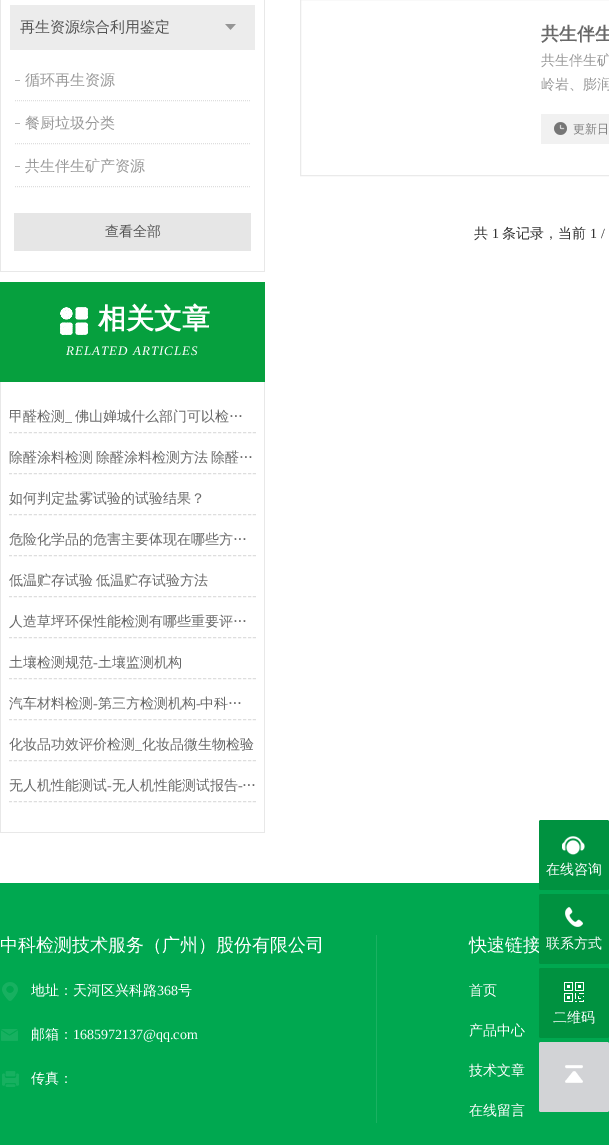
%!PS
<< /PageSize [609 1145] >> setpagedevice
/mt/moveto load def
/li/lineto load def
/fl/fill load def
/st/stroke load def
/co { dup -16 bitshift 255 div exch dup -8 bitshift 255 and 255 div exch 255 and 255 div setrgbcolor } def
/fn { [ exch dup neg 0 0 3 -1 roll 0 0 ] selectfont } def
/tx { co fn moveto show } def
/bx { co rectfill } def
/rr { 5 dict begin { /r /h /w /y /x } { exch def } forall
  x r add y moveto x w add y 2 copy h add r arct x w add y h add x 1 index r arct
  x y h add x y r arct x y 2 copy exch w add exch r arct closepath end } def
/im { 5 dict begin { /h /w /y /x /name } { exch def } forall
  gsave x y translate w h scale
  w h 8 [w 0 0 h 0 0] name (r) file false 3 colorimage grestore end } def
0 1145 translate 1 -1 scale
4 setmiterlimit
0 0 609 1145 16#FFFFFF bx
264 0 1 272 16#E8E8E8 bx
0 271 265 1 16#E8E8E8 bx
0 0 1 272 16#E8E8E8 bx
10 5 245 45 16#ECECEC bx
(media/1.raw) 225 24 11 6 im
16#DEDEDE co
[1 1] 0 setdash
15 100.5 mt 250 100.5 li st
15 80 5 1 16#B3B3B3 bx
16#DEDEDE co
15 143.5 mt 250 143.5 li st
15 123 5 1 16#B3B3B3 bx
16#DEDEDE co
15 186.5 mt 250 186.5 li st
15 166 5 1 16#B3B3B3 bx
14 213 237 38 16#E6E6E6 bx
0 282 265 100 16#06A03E bx
(media/2.raw) 60 307 28 28 im
264 382 1 451 16#E8E8E8 bx
0 832 265 1 16#E8E8E8 bx
0 382 1 451 16#E8E8E8 bx
16#DEDEDE co
[3 1.98] 0 setdash
9 432.5 mt 256 432.5 li st
9 473.5 mt 256 473.5 li st
9 514.5 mt 256 514.5 li st
9 555.5 mt 256 555.5 li st
9 596.5 mt 256 596.5 li st
9 637.5 mt 256 637.5 li st
9 678.5 mt 256 678.5 li st
9 719.5 mt 256 719.5 li st
9 760.5 mt 256 760.5 li st
9 801.5 mt 256 801.5 li st
16#EAEAEA co
[] 0 setdash
300.5 -.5 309 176 rectstroke
541 114 68 30 16#F1F1F1 bx
(media/3.raw) 554 122 13 13 im
0 883 609 262 16#00A850 bx
(media/4.raw) 2 982 16 19 im
(media/5.raw) 1 1029 17 12 im
(media/6.raw) 2 1071 17 16 im
376 935 1 188 16#1AB162 bx
16#009240 co
539 820 70 70 2 rr fl
(media/7.raw) 562 836 23 19 im
539 968 70 70 2 rr fl
(media/9.raw) 564 982 20 20 im
16#D2D3D6 co
539 1042 70 70 2 rr fl
(media/10.raw) 565 1065 18 18 im
(再生资源综合利用鉴定) 20 32 /WenQuanYiZenHei-Medium 15 16#555555 tx
(循环再生资源) 25 85 /WenQuanYiZenHei-Medium 15 16#999999 tx
(餐厨垃圾分类) 25 128 /WenQuanYiZenHei-Medium 15 16#999999 tx
(共生伴生矿产资源) 25 171 /WenQuanYiZenHei-Medium 15 16#999999 tx
(查看全部) 105 236 /WenQuanYiZenHei-Medium 14 16#555555 tx
(相关文章) 98 328 /WenQuanYiZenHei-Bold 28 16#FFFFFF tx
/LiberationSerif-Italic 13 fn
66 355 mt 1 0 (RELATED ARTICLES) ashow
(甲醛检测) 9 421 /WenQuanYiZenHei-Medium 14 16#686868 tx
(_) 65 421 /LiberationSerif-Regular 14 16#686868 tx
(佛山婵城什么部门可以检…) 75 421 /WenQuanYiZenHei-Medium 14 16#686868 tx
9 462 mt -1 0 32 (除醛涂料检测 除醛涂料检测方法 除醛…) widthshow
(如何判定盐雾试验的试验结果？) 9 503 /WenQuanYiZenHei-Medium 14 16#686868 tx
(危险化学品的危害主要体现在哪些方…) 9 544 /WenQuanYiZenHei-Medium 14 16#686868 tx
9 585 mt -1 0 32 (低温贮存试验 低温贮存试验方法) widthshow
(人造草坪环保性能检测有哪些重要评…) 9 626 /WenQuanYiZenHei-Medium 14 16#686868 tx
(土壤检测规范) 9 667 /WenQuanYiZenHei-Medium 14 16#686868 tx
(-) 93 667 /LiberationSerif-Regular 14 16#686868 tx
(土壤监测机构) 98 667 /WenQuanYiZenHei-Medium 14 16#686868 tx
(汽车材料检测) 9 708 /WenQuanYiZenHei-Medium 14 16#686868 tx
(-) 93 708 /LiberationSerif-Regular 14 16#686868 tx
(第三方检测机构) 98 708 /WenQuanYiZenHei-Medium 14 16#686868 tx
(-) 196 708 /LiberationSerif-Regular 14 16#686868 tx
(中科…) 200 708 /WenQuanYiZenHei-Medium 14 16#686868 tx
(化妆品功效评价检测) 9 749 /WenQuanYiZenHei-Medium 14 16#686868 tx
(_) 135 749 /LiberationSerif-Regular 14 16#686868 tx
(化妆品微生物检验) 142 749 /WenQuanYiZenHei-Medium 14 16#686868 tx
(无人机性能测试) 9 790 /WenQuanYiZenHei-Medium 14 16#686868 tx
(无人机性能测试报告) 112 790 /WenQuanYiZenHei-Medium 14 16#686868 tx
(…) 242 790 /WenQuanYiZenHei-Medium 14 16#686868 tx
(-) 107 790 /LiberationSerif-Regular 14 16#686868 tx
(-) 238 790 /LiberationSerif-Regular 14 16#686868 tx
(共生伴生) 541 40 /WenQuanYiZenHei-Bold 18 16#686868 tx
(共生伴生矿) 541 65 /WenQuanYiZenHei-Medium 14 16#999999 tx
(岭岩、膨润) 541 89 /WenQuanYiZenHei-Medium 14 16#999999 tx
(更新日) 573 133 /WenQuanYiZenHei-Medium 12 16#828282 tx
(共) 474 238 /WenQuanYiZenHei-Medium 14 16#333333 tx
(1) 492 238 /LiberationSerif-Regular 14 16#333333 tx
(条记录，当前) 502 238 /WenQuanYiZenHei-Medium 14 16#333333 tx
(1 /) 590 238 /LiberationSerif-Regular 14 16#333333 tx
(中科检测技术服务（广州）股份有限公司) 0 951 /WenQuanYiZenHei-Medium 18 16#FFFFFF tx
(地址：天河区兴科路) 31 995 /WenQuanYiZenHei-Medium 14 16#FFFFFF tx
(368) 157 995 /LiberationSerif-Regular 14 16#FFFFFF tx
(号) 178 995 /WenQuanYiZenHei-Medium 14 16#FFFFFF tx
(邮箱：) 31 1039 /WenQuanYiZenHei-Medium 14 16#FFFFFF tx
(1685972137@qq.com) 73 1039 /LiberationSerif-Regular 14 16#FFFFFF tx
(传真：) 31 1083 /WenQuanYiZenHei-Medium 14 16#FFFFFF tx
(快速链接) 469 951 /WenQuanYiZenHei-Medium 18 16#FFFFFF tx
(首页) 469 995 /WenQuanYiZenHei-Medium 14 16#FFFFFF tx
(产品中心) 469 1035 /WenQuanYiZenHei-Medium 14 16#FFFFFF tx
(技术文章) 469 1075 /WenQuanYiZenHei-Medium 14 16#FFFFFF tx
(在线留言) 469 1115 /WenQuanYiZenHei-Medium 14 16#FFFFFF tx
(在线咨询) 546 874 /WenQuanYiZenHei-Medium 14 16#FFFFFF tx
16#009240 co
539 894 70 70 2 rr fl
(media/8.raw) 565 907 18 20 im
(联系方式) 546 948 /WenQuanYiZenHei-Medium 14 16#FFFFFF tx
(二维码) 553 1022 /WenQuanYiZenHei-Medium 14 16#FFFFFF tx
showpage
